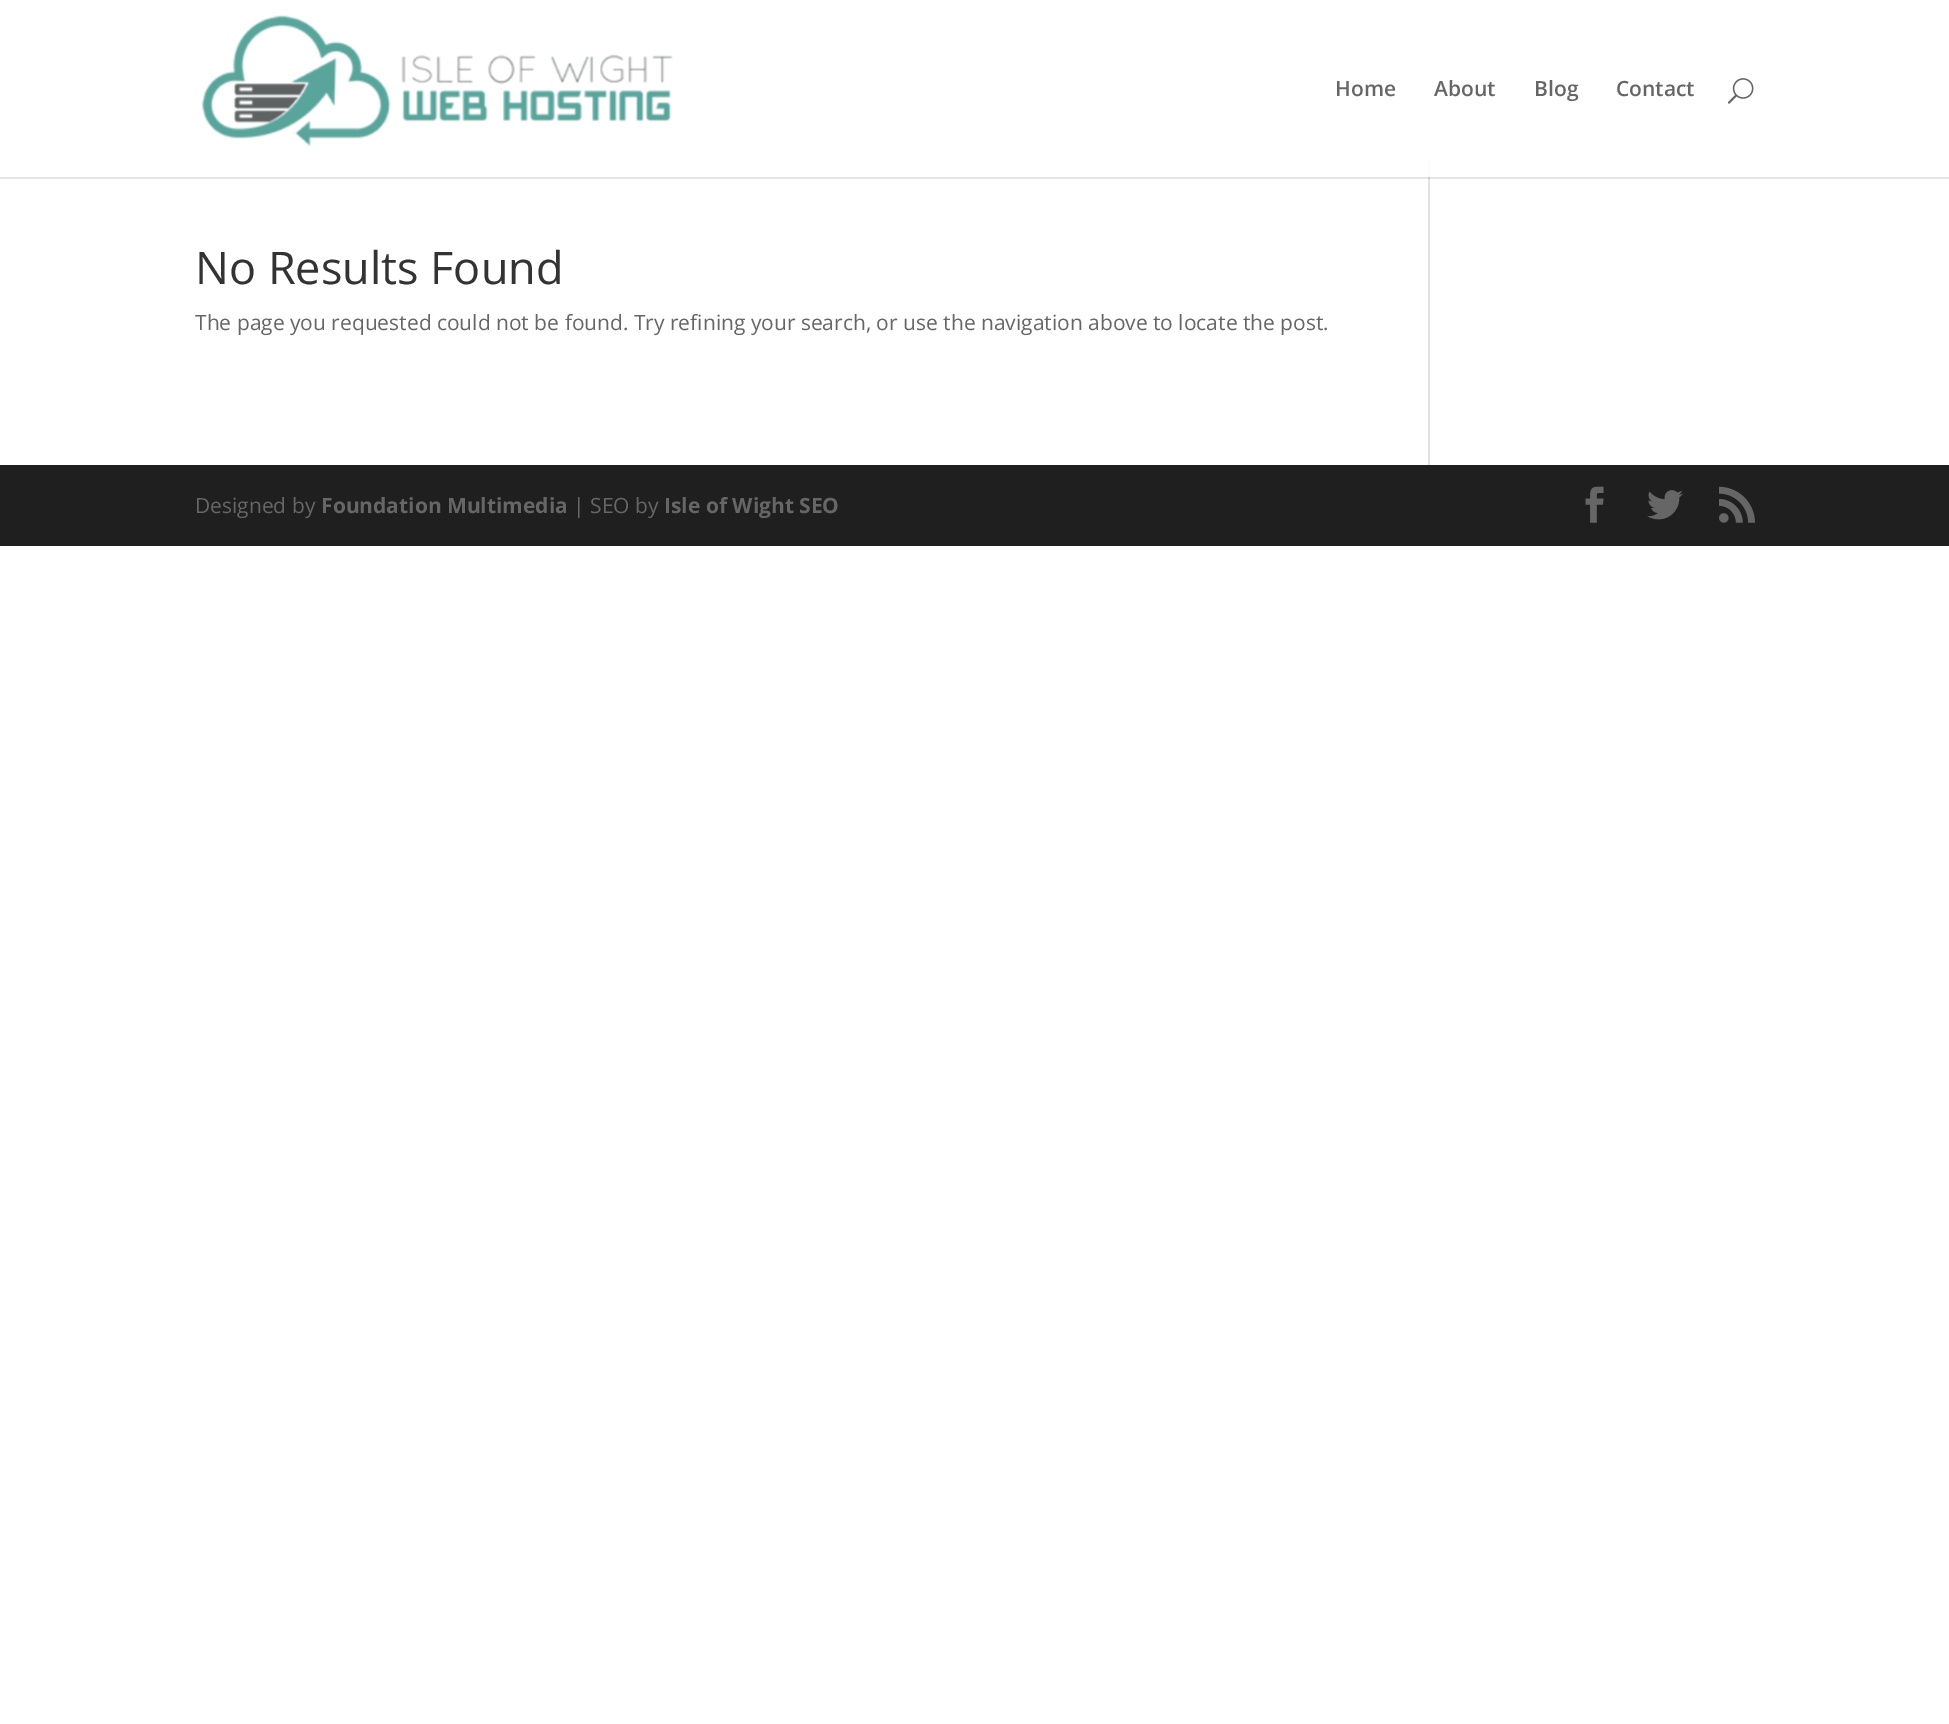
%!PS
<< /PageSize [1949 1724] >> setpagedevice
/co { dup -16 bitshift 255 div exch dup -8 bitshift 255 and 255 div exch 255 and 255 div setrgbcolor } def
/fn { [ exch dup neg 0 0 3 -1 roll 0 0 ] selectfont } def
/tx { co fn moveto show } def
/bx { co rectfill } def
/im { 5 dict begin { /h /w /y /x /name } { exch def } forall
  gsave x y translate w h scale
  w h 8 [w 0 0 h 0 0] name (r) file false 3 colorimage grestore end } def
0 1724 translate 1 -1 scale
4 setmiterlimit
0 0 1949 1724 16#FFFFFF bx
0 177 1949 2 16#E6E6E6 bx
(media/1.raw) 201 15 472 132 im
(media/2.raw) 1727 78 27 26 im
1428 179 2 286 16#E2E2E2 bx
1428 158 2 19 16#FCFCFC bx
1428 177 2 2 16#CBCBCB bx
0 465 1949 81 16#1F1F1F bx
(media/3.raw) 1585 486 19 37 im
(media/4.raw) 1647 490 36 30 im
(media/5.raw) 1719 486 36 37 im
(Home) 1335 96 /OpenSans-SemiBold 21 16#666666 tx
(About) 1434 96 /OpenSans-SemiBold 21 16#666666 tx
(Blog) 1534 96 /OpenSans-SemiBold 21 16#666666 tx
(Contact) 1616 96 /OpenSans-SemiBold 21 16#666666 tx
(No Results Found) 195 284 /OpenSans-Regular 45 16#333333 tx
(The page you requested could not be found. Try refining your search, or use the navigation above to locate the post.) 195 330 /OpenSans-Regular 21 16#666666 tx
(Designed by) 195 513 /OpenSans-Regular 21 16#666666 tx
(Foundation Multimedia) 321 513 /OpenSans-Bold 21 16#666666 tx
(| SEO by) 573 513 /OpenSans-Regular 21 16#666666 tx
(Isle of Wight SEO) 664 513 /OpenSans-Bold 21 16#666666 tx
showpage
